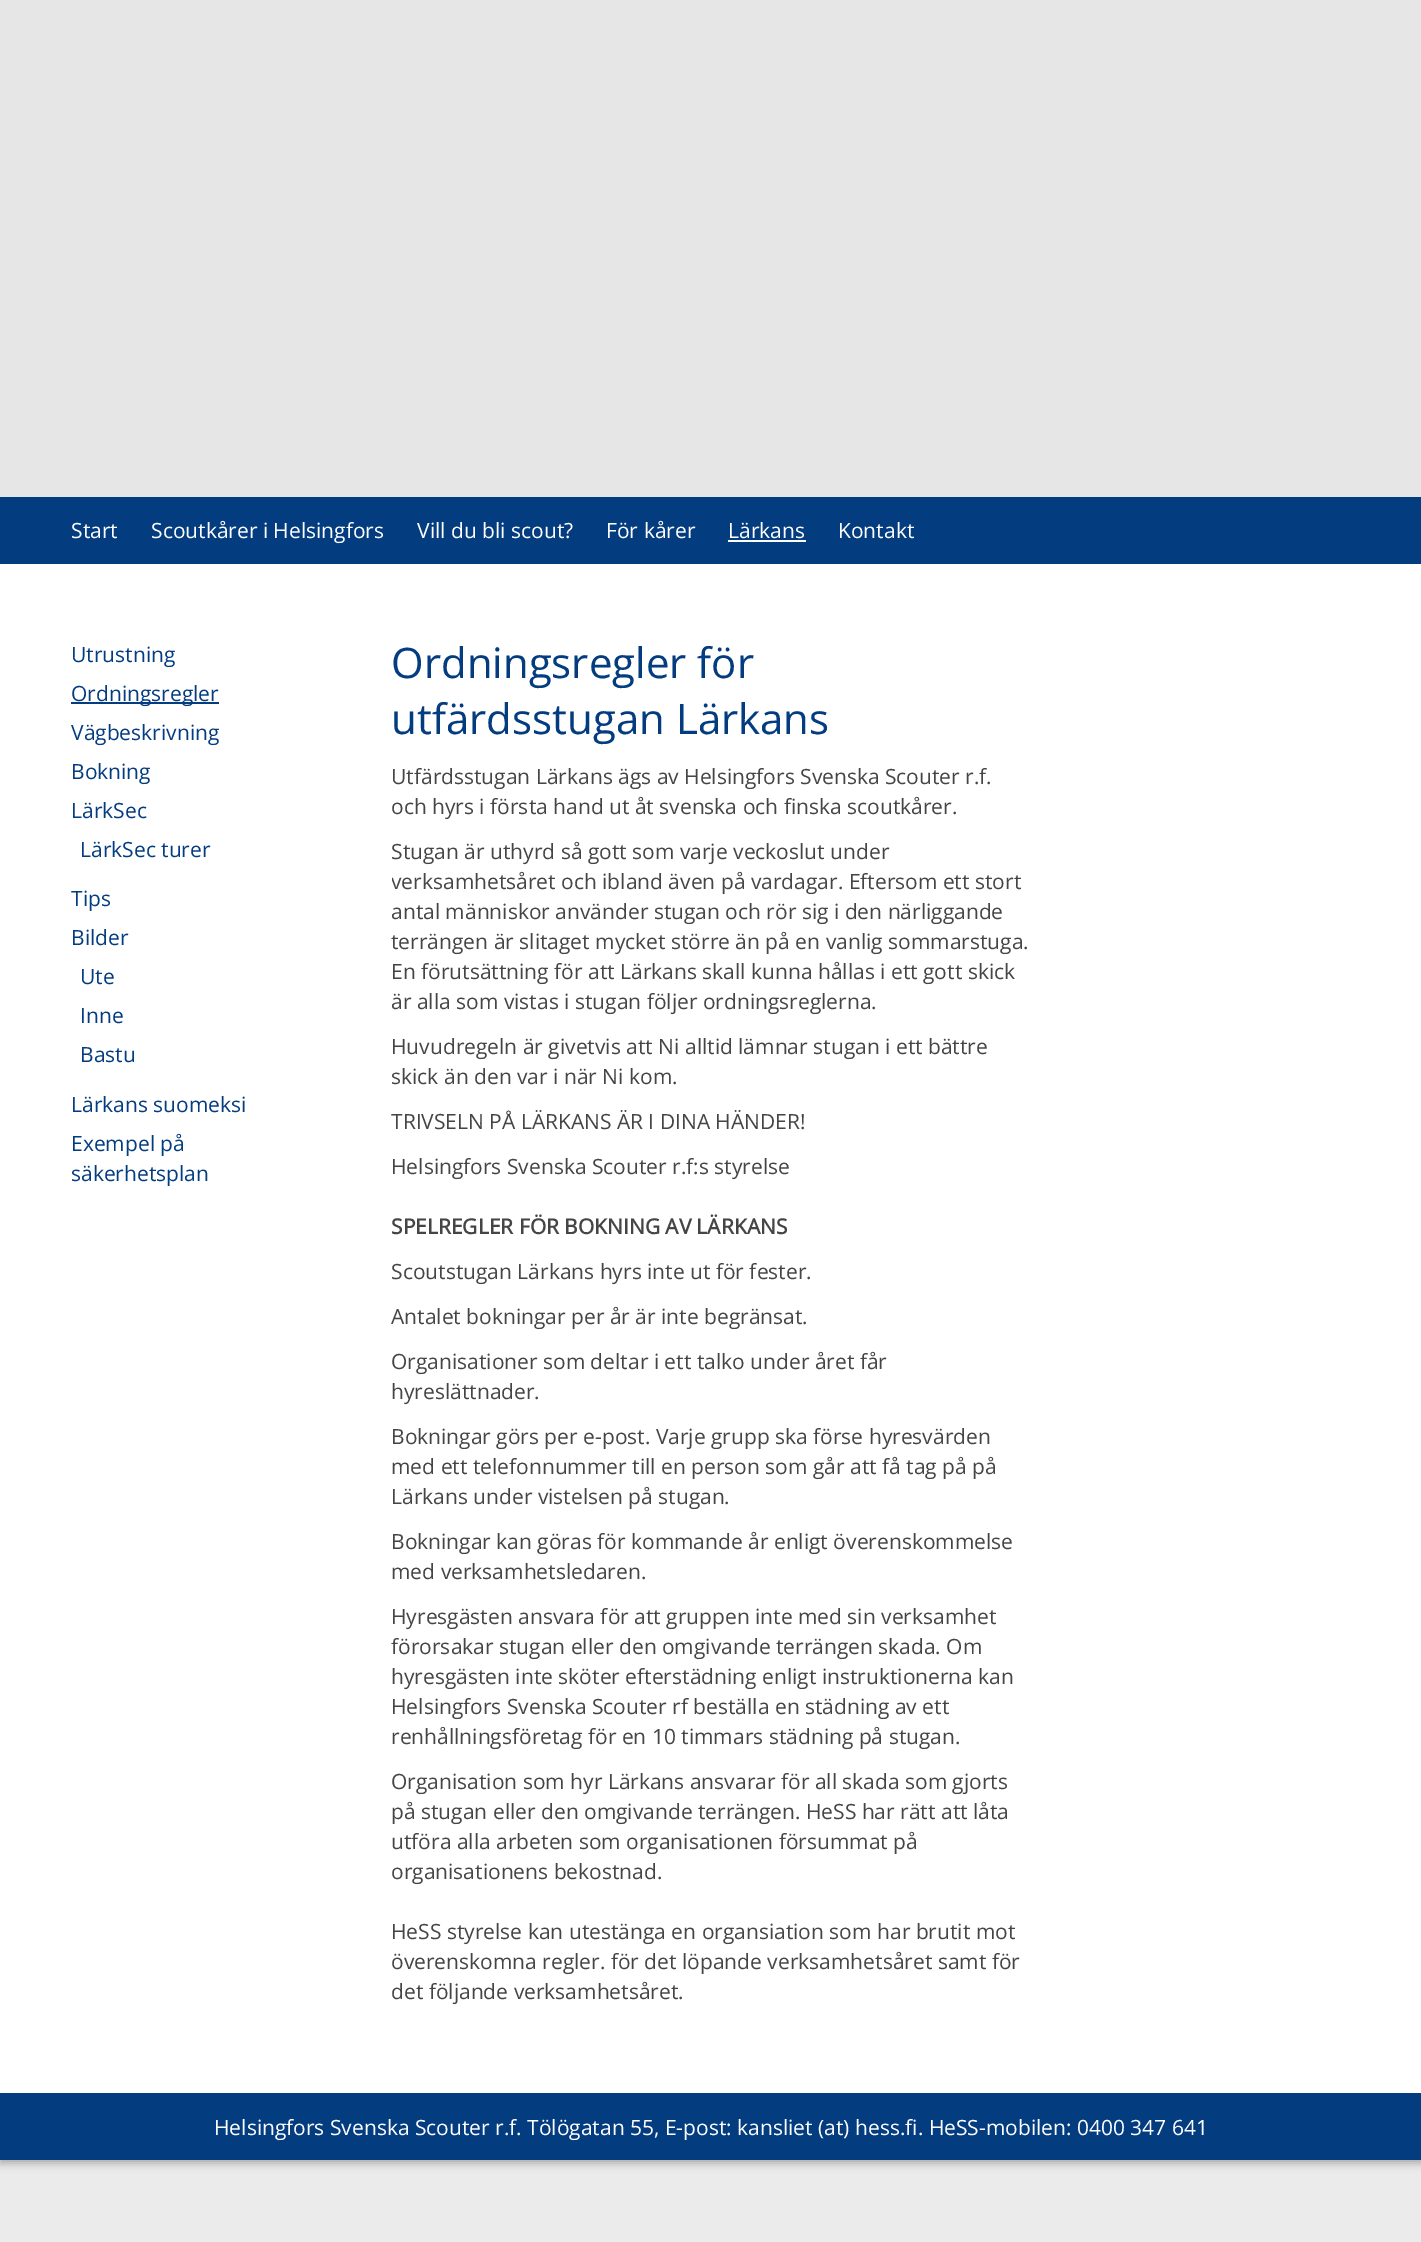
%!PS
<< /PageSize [1421 2242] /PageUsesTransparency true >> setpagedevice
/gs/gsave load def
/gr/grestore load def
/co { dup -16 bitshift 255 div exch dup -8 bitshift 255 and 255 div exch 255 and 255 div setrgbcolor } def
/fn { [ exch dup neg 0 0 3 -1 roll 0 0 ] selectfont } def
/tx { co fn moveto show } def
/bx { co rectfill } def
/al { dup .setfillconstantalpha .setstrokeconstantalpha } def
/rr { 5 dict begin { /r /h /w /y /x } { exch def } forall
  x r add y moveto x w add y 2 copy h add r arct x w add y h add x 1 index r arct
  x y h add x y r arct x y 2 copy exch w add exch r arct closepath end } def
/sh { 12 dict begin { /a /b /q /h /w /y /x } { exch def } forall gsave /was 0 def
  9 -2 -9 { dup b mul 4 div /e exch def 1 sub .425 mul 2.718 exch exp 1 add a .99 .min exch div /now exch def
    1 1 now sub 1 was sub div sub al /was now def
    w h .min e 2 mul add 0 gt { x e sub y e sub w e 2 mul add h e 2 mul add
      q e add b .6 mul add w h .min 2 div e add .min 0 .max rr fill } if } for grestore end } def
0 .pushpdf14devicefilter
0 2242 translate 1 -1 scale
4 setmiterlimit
0 0 1421 2242 16#EBEBEB bx
16#000000 co
0 3 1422 2160 0 4.5 .3 sh
0 0 1421 497 16#E6E6E6 bx
0 497 1421 67 16#043C80 bx
728 540 78 2 16#FFFFFF bx
0 564 1421 1529 16#FFFFFF bx
71 702 148 2 16#043C80 bx
0 2093 1421 67 16#043C80 bx
(Start) 71 538 /OpenSans-Regular 21 16#FFFFFF tx
(Scoutkårer i Helsingfors) 151 538 /OpenSans-Regular 21 16#FFFFFF tx
(Vill du bli scout?) 417 538 /OpenSans-Regular 21 16#FFFFFF tx
(För kårer) 606 538 /OpenSans-Regular 21 16#FFFFFF tx
(Lärkans) 728 538 /OpenSans-Regular 21 16#FFFFFF tx
(Kontakt) 838 538 /OpenSans-Regular 21 16#FFFFFF tx
(Utrustning) 71 662 /OpenSans-Regular 21 16#043C80 tx
(Ordningsregler) 71 701 /OpenSans-Regular 21 16#043C80 tx
(Vägbeskrivning) 71 740 /OpenSans-Regular 21 16#043C80 tx
(Bokning) 71 779 /OpenSans-Regular 21 16#043C80 tx
(LärkSec) 71 818 /OpenSans-Regular 21 16#043C80 tx
(LärkSec turer) 80 857 /OpenSans-Regular 21 16#043C80 tx
(Tips) 71 906 /OpenSans-Regular 21 16#043C80 tx
(Bilder) 71 945 /OpenSans-Regular 21 16#043C80 tx
(Ute) 80 984 /OpenSans-Regular 21 16#043C80 tx
(Inne) 80 1023 /OpenSans-Regular 21 16#043C80 tx
(Bastu) 80 1062 /OpenSans-Regular 21 16#043C80 tx
(Lärkans suomeksi) 71 1112 /OpenSans-Regular 21 16#043C80 tx
(Exempel på) 71 1151 /OpenSans-Regular 21 16#043C80 tx
(säkerhetsplan) 71 1181 /OpenSans-Regular 21 16#043C80 tx
(Ordningsregler för) 391 678 /OpenSans-Regular 42 16#043C80 tx
(utfärdsstugan Lärkans) 391 734 /OpenSans-Regular 42 16#043C80 tx
(Utfärdsstugan Lärkans ägs av Helsingfors Svenska Scouter r.f.) 391 784 /OpenSans-Regular 21 16#454545 tx
(och hyrs i första hand ut åt svenska och finska scoutkårer.) 391 814 /OpenSans-Regular 21 16#454545 tx
(Stugan är uthyrd så gott som varje veckoslut under) 391 859 /OpenSans-Regular 21 16#454545 tx
gs
392 635 639 1387 rectclip
(verksamhetsåret och ibland även på vardagar. Eftersom ett stort) 391 889 /OpenSans-Regular 21 16#454545 tx
gr
(antal människor använder stugan och rör sig i den närliggande) 391 919 /OpenSans-Regular 21 16#454545 tx
(terrängen är slitaget mycket större än på en vanlig sommarstuga.) 391 949 /OpenSans-Regular 21 16#454545 tx
(En förutsättning för att Lärkans skall kunna hållas i ett gott skick) 391 979 /OpenSans-Regular 21 16#454545 tx
(är alla som vistas i stugan följer ordningsreglerna.) 391 1009 /OpenSans-Regular 21 16#454545 tx
(Huvudregeln är givetvis att Ni alltid lämnar stugan i ett bättre) 391 1054 /OpenSans-Regular 21 16#454545 tx
(skick än den var i när Ni kom.) 391 1084 /OpenSans-Regular 21 16#454545 tx
(TRIVSELN PÅ LÄRKANS ÄR I DINA HÄNDER!) 391 1129 /OpenSans-Regular 21 16#454545 tx
(Helsingfors Svenska Scouter r.f:s styrelse) 391 1174 /OpenSans-Regular 21 16#454545 tx
(SPELREGLER FÖR BOKNING AV LÄRKANS) 391 1234 /OpenSans-Bold 21 16#454545 tx
(Scoutstugan Lärkans hyrs inte ut för fester.) 391 1279 /OpenSans-Regular 21 16#454545 tx
(Antalet bokningar per år är inte begränsat.) 391 1324 /OpenSans-Regular 21 16#454545 tx
(Organisationer som deltar i ett talko under året får) 391 1369 /OpenSans-Regular 21 16#454545 tx
(hyreslättnader.) 391 1399 /OpenSans-Regular 21 16#454545 tx
(Bokningar görs per e-post. Varje grupp ska förse hyresvärden) 391 1444 /OpenSans-Regular 21 16#454545 tx
(med ett telefonnummer till en person som går att få tag på på) 391 1474 /OpenSans-Regular 21 16#454545 tx
(Lärkans under vistelsen på stugan.) 391 1504 /OpenSans-Regular 21 16#454545 tx
(Bokningar kan göras för kommande år enligt överenskommelse) 391 1549 /OpenSans-Regular 21 16#454545 tx
(med verksamhetsledaren.) 391 1579 /OpenSans-Regular 21 16#454545 tx
(Hyresgästen ansvara för att gruppen inte med sin verksamhet) 391 1624 /OpenSans-Regular 21 16#454545 tx
(förorsakar stugan eller den omgivande terrängen skada. Om) 391 1654 /OpenSans-Regular 21 16#454545 tx
(hyresgästen inte sköter efterstädning enligt instruktionerna kan) 391 1684 /OpenSans-Regular 21 16#454545 tx
(Helsingfors Svenska Scouter rf beställa en städning av ett) 391 1714 /OpenSans-Regular 21 16#454545 tx
(renhållningsföretag för en 10 timmars städning på stugan.) 391 1744 /OpenSans-Regular 21 16#454545 tx
(Organisation som hyr Lärkans ansvarar för all skada som gjorts) 391 1789 /OpenSans-Regular 21 16#454545 tx
(på stugan eller den omgivande terrängen. HeSS har rätt att låta) 391 1819 /OpenSans-Regular 21 16#454545 tx
(utföra alla arbeten som organisationen försummat på) 391 1849 /OpenSans-Regular 21 16#454545 tx
(organisationens bekostnad.) 391 1879 /OpenSans-Regular 21 16#454545 tx
(HeSS styrelse kan utestänga en organsiation som har brutit mot) 391 1939 /OpenSans-Regular 21 16#454545 tx
(överenskomna regler. för det löpande verksamhetsåret samt för) 391 1969 /OpenSans-Regular 21 16#454545 tx
(det följande verksamhetsåret.) 391 1999 /OpenSans-Regular 21 16#454545 tx
(Helsingfors Svenska Scouter r.f. Tölögatan 55, E-post: kansliet \(at\) hess.fi. HeSS-mobilen: 0400 347 641) 214 2135 /OpenSans-Regular 21 16#FFFFFF tx
.poppdf14devicefilter showpage
